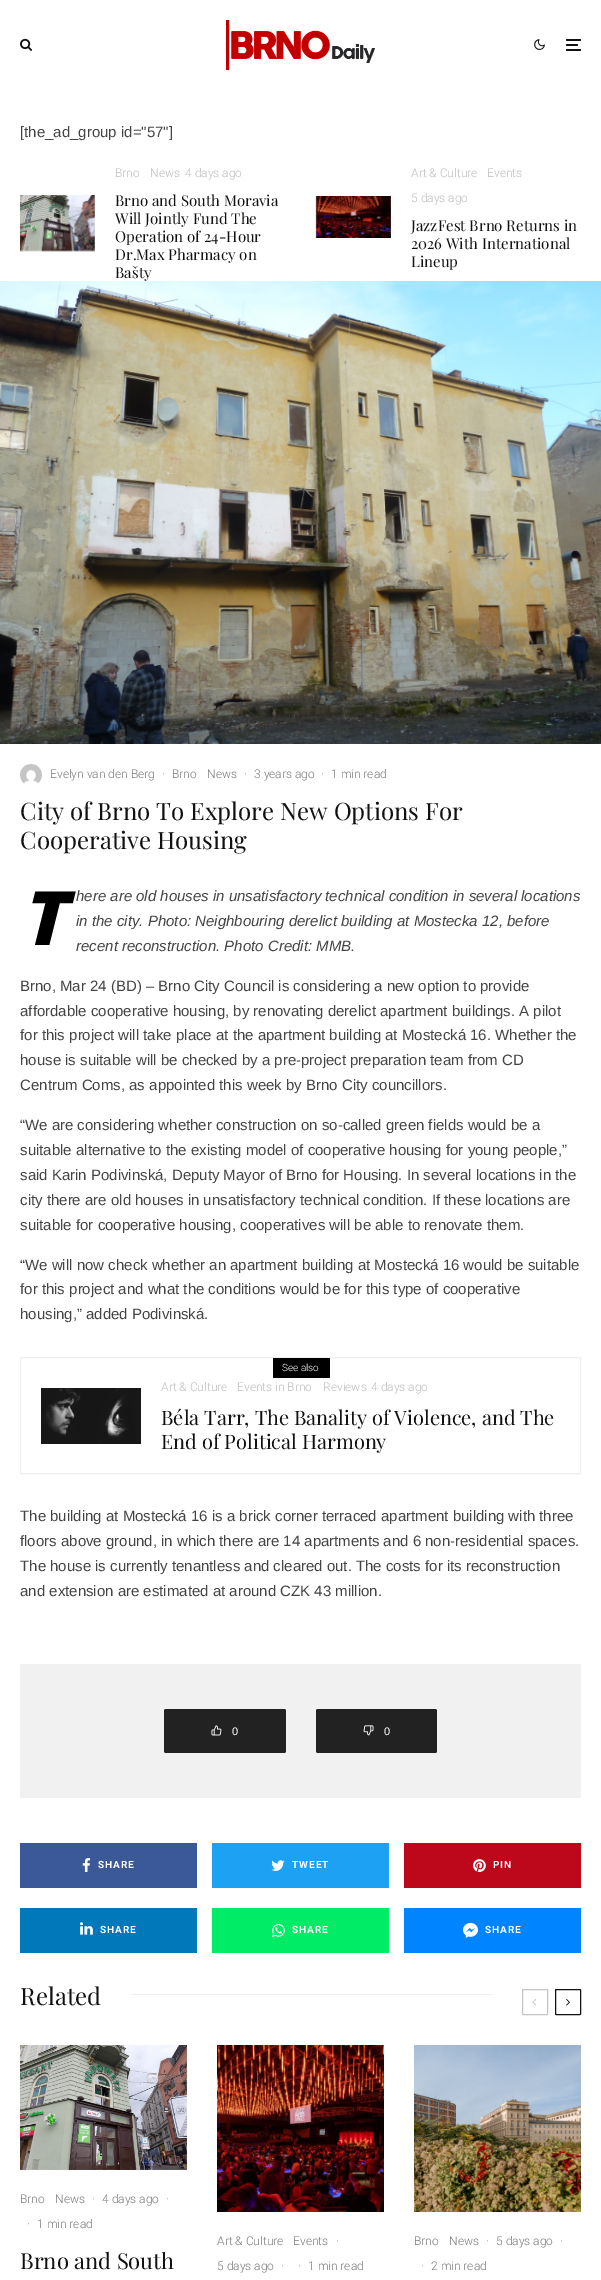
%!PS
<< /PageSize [601 2280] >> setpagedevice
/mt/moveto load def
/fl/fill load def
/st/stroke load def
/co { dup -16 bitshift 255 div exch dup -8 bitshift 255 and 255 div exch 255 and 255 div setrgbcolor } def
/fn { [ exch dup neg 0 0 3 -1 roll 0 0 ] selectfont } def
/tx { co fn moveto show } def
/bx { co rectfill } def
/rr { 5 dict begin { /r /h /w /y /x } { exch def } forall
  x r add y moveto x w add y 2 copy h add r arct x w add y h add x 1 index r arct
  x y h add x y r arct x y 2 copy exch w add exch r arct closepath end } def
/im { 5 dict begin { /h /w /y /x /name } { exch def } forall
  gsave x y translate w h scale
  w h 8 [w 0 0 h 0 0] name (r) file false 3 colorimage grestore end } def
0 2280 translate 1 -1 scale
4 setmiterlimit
0 0 601 2280 16#FFFFFF bx
(media/1.raw) 20 38 12 13 im
(media/2.raw) 226 20 149 50 im
(media/3.raw) 534 39 11 11 im
16#111111 co
566 44 12 2 1 rr fl
566 39 15 2 1 rr fl
566 49 15 2 1 rr fl
20 195 75 56 16#EEEEEE bx
(media/4.raw) 20 195 75 57 im
(media/5.raw) 315 196 76 42 im
(media/6.raw) 0 281 601 463 im
(media/7.raw) 20 764 22 20 im
20.5 1357.5 560 116 rectstroke
273 1358 57 20 16#000000 bx
(media/8.raw) 41 1388 100 56 im
20 1664 561 134 16#F1F1F1 bx
16#222222 co
164 1709 122 44 2 rr fl
(media/9.raw) 211 1725 11 11 im
316 1709 121 44 2 rr fl
(media/10.raw) 363 1725 11 11 im
20 1843 177 45 16#3B5998 bx
(media/11.raw) 82 1858 9 14 im
212 1843 177 45 16#1DA1F2 bx
(media/12.raw) 271 1860 14 11 im
404 1843 177 45 16#BD081C bx
(media/13.raw) 473 1859 13 13 im
20 1908 177 45 16#0078BA bx
(media/14.raw) 80 1922 13 13 im
212 1908 177 45 16#00EC67 bx
(media/15.raw) 272 1924 13 13 im
404 1908 177 45 16#0084FF bx
(media/16.raw) 463 1922 15 16 im
131 1994 361 1 16#EEEEEE bx
16#C4C4C4 co
522.5 1989.5 25 25 .5 rr st
(media/17.raw) 532 1999 4 7 im
16#111111 co
555.5 1989.5 25 25 .5 rr st
(media/18.raw) 566 1999 4 7 im
(media/19.raw) 20 2045 167 125 im
(media/20.raw) 217 2045 167 167 im
(media/21.raw) 414 2045 167 167 im
([the_ad_group id="57"]) 20 137 /LiberationSans-Regular 15 16#444444 tx
(Brno) 115 177 /Roboto-Light 12 16#BDBDBD tx
(News) 150 177 /Roboto-Light 12 16#BDBDBD tx
(4 days ago) 185 177 /Roboto-Light 12 16#BDBDBD tx
(Brno and South Moravia) 115 206 /PlayfairDisplay-Regular 15 16#111111 tx
(Will Jointly Fund The) 115 224 /PlayfairDisplay-Regular 15 16#111111 tx
(Operation of 24-Hour) 115 242 /PlayfairDisplay-Regular 15 16#111111 tx
(Dr.Max Pharmacy on) 115 260 /PlayfairDisplay-Regular 15 16#111111 tx
(Bašty) 115 278 /PlayfairDisplay-Regular 15 16#111111 tx
(Art & Culture) 411 177 /Roboto-Light 12 16#BDBDBD tx
(Events) 487 177 /Roboto-Light 12 16#BDBDBD tx
(5 days ago) 411 202 /Roboto-Light 12 16#BDBDBD tx
(JazzFest Brno Returns in) 411 231 /PlayfairDisplay-Regular 15 16#111111 tx
(2026 With International) 411 249 /PlayfairDisplay-Regular 15 16#111111 tx
(Lineup) 411 267 /PlayfairDisplay-Regular 15 16#111111 tx
(Evelyn van den Berg) 50 778 /Roboto-Light 12 16#7A7A7A tx
(·) 162 778 /Roboto-Light 12 16#7A7A7A tx
(Brno) 172 778 /Roboto-Light 12 16#7A7A7A tx
(News) 207 778 /Roboto-Light 12 16#7A7A7A tx
(·) 244 778 /Roboto-Light 12 16#7A7A7A tx
(3 years ago) 254 778 /Roboto-Light 12 16#7A7A7A tx
(·) 321 778 /Roboto-Light 12 16#7A7A7A tx
(1 min read) 331 778 /Roboto-Light 12 16#7A7A7A tx
(City of Brno To Explore New Options For) 20 820 /PlayfairDisplay-Regular 24 16#111111 tx
(Cooperative Housing) 20 849 /PlayfairDisplay-Regular 24 16#111111 tx
(T) 20 945 /NotoSans-BlackItalic 75 16#000000 tx
(here are old houses in unsatisfactory technical condition in several locations) 76 901 /LiberationSans-Italic 15 16#444444 tx
(in the city. Photo: Neighbouring derelict building at Mostecka 12, before) 76 926 /LiberationSans-Italic 15 16#444444 tx
(recent reconstruction. Photo Credit: MMB.) 76 951 /LiberationSans-Italic 15 16#444444 tx
(Brno, Mar 24 \(BD\) – Brno City Council is considering a new option to provide) 20 991 /LiberationSans-Regular 15 16#444444 tx
(affordable cooperative housing, by renovating derelict apartment buildings. A pilot) 20 1016 /LiberationSans-Regular 15 16#444444 tx
(for this project will take place at the apartment building at Mostecká 16. Whether the) 20 1040 /LiberationSans-Regular 15 16#444444 tx
(house is suitable will be checked by a pre-project preparation team from CD) 20 1065 /LiberationSans-Regular 15 16#444444 tx
(Centrum Coms, as appointed this week by Brno City councillors.) 20 1090 /LiberationSans-Regular 15 16#444444 tx
(“We are considering whether construction on so-called green fields would be a) 20 1130 /LiberationSans-Regular 15 16#444444 tx
(suitable alternative to the existing model of cooperative housing for young people,”) 20 1155 /LiberationSans-Regular 15 16#444444 tx
(said Karin Podivinská, Deputy Mayor of Brno for Housing. In several locations in the) 20 1180 /LiberationSans-Regular 15 16#444444 tx
(city there are old houses in unsatisfactory technical condition. If these locations are) 20 1205 /LiberationSans-Regular 15 16#444444 tx
(suitable for cooperative housing, cooperatives will be able to renovate them.) 20 1230 /LiberationSans-Regular 15 16#444444 tx
(“We will now check whether an apartment building at Mostecká 16 would be suitable) 20 1270 /LiberationSans-Regular 15 16#444444 tx
(for this project and what the conditions would be for this type of cooperative) 20 1294 /LiberationSans-Regular 15 16#444444 tx
(housing,” added Podivinská.) 20 1319 /LiberationSans-Regular 15 16#444444 tx
(See also) 282 1371 /Roboto-Light 10 16#FFFFFF tx
(Art & Culture) 161 1391 /Roboto-Light 12 16#BDBDBD tx
(Events in Brno) 237 1391 /Roboto-Light 12 16#BDBDBD tx
(Reviews) 323 1391 /Roboto-Light 12 16#BDBDBD tx
(4 days ago) 371 1391 /Roboto-Light 12 16#BDBDBD tx
(Béla Tarr, The Banality of Violence, and The) 161 1425 /PlayfairDisplay-Regular 20 16#111111 tx
(End of Political Harmony) 161 1449 /PlayfairDisplay-Regular 20 16#111111 tx
(The building at Mostecká 16 is a brick corner terraced apartment building with three) 20 1521 /LiberationSans-Regular 15 16#444444 tx
(floors above ground, in which there are 14 apartments and 6 non-residential spaces.) 20 1546 /LiberationSans-Regular 15 16#444444 tx
(The house is currently tenantless and cleared out. The costs for its reconstruction) 20 1571 /LiberationSans-Regular 15 16#444444 tx
(and extension are estimated at around CZK 43 million.) 20 1596 /LiberationSans-Regular 15 16#444444 tx
(0) 232 1735 /LiberationSans-Regular 11 16#FFFFFF tx
(0) 384 1735 /LiberationSans-Regular 11 16#FFFFFF tx
/Roboto-Bold 10 fn
98 1868 mt 1 0 (SHARE) ashow
292 1868 mt 1 0 (TWEET) ashow
493 1868 mt 1 0 (PIN) ashow
100 1933 mt 1 0 (SHARE) ashow
292 1933 mt 1 0 (SHARE) ashow
485 1933 mt 1 0 (SHARE) ashow
(Related) 20 2005 /PlayfairDisplay-Regular 24 16#111111 tx
(Brno) 20 2203 /Roboto-Light 12 16#7A7A7A tx
(News) 55 2203 /Roboto-Light 12 16#7A7A7A tx
(·) 92 2203 /Roboto-Light 12 16#7A7A7A tx
(4 days ago) 102 2203 /Roboto-Light 12 16#7A7A7A tx
(·) 166 2203 /Roboto-Light 12 16#7A7A7A tx
(·) 27 2228 /Roboto-Light 12 16#7A7A7A tx
(1 min read) 37 2228 /Roboto-Light 12 16#7A7A7A tx
(Brno and South) 20 2269 /PlayfairDisplay-Regular 22 16#111111 tx
(Art & Culture) 217 2245 /Roboto-Light 12 16#7A7A7A tx
(Events) 293 2245 /Roboto-Light 12 16#7A7A7A tx
(·) 336 2245 /Roboto-Light 12 16#7A7A7A tx
(5 days ago) 217 2270 /Roboto-Light 12 16#7A7A7A tx
(·) 281 2270 /Roboto-Light 12 16#7A7A7A tx
(·) 298 2270 /Roboto-Light 12 16#7A7A7A tx
(1 min read) 308 2270 /Roboto-Light 12 16#7A7A7A tx
(Brno) 414 2245 /Roboto-Light 12 16#7A7A7A tx
(News) 449 2245 /Roboto-Light 12 16#7A7A7A tx
(·) 486 2245 /Roboto-Light 12 16#7A7A7A tx
(5 days ago) 496 2245 /Roboto-Light 12 16#7A7A7A tx
(·) 560 2245 /Roboto-Light 12 16#7A7A7A tx
(·) 421 2270 /Roboto-Light 12 16#7A7A7A tx
(2 min read) 431 2270 /Roboto-Light 12 16#7A7A7A tx
showpage
